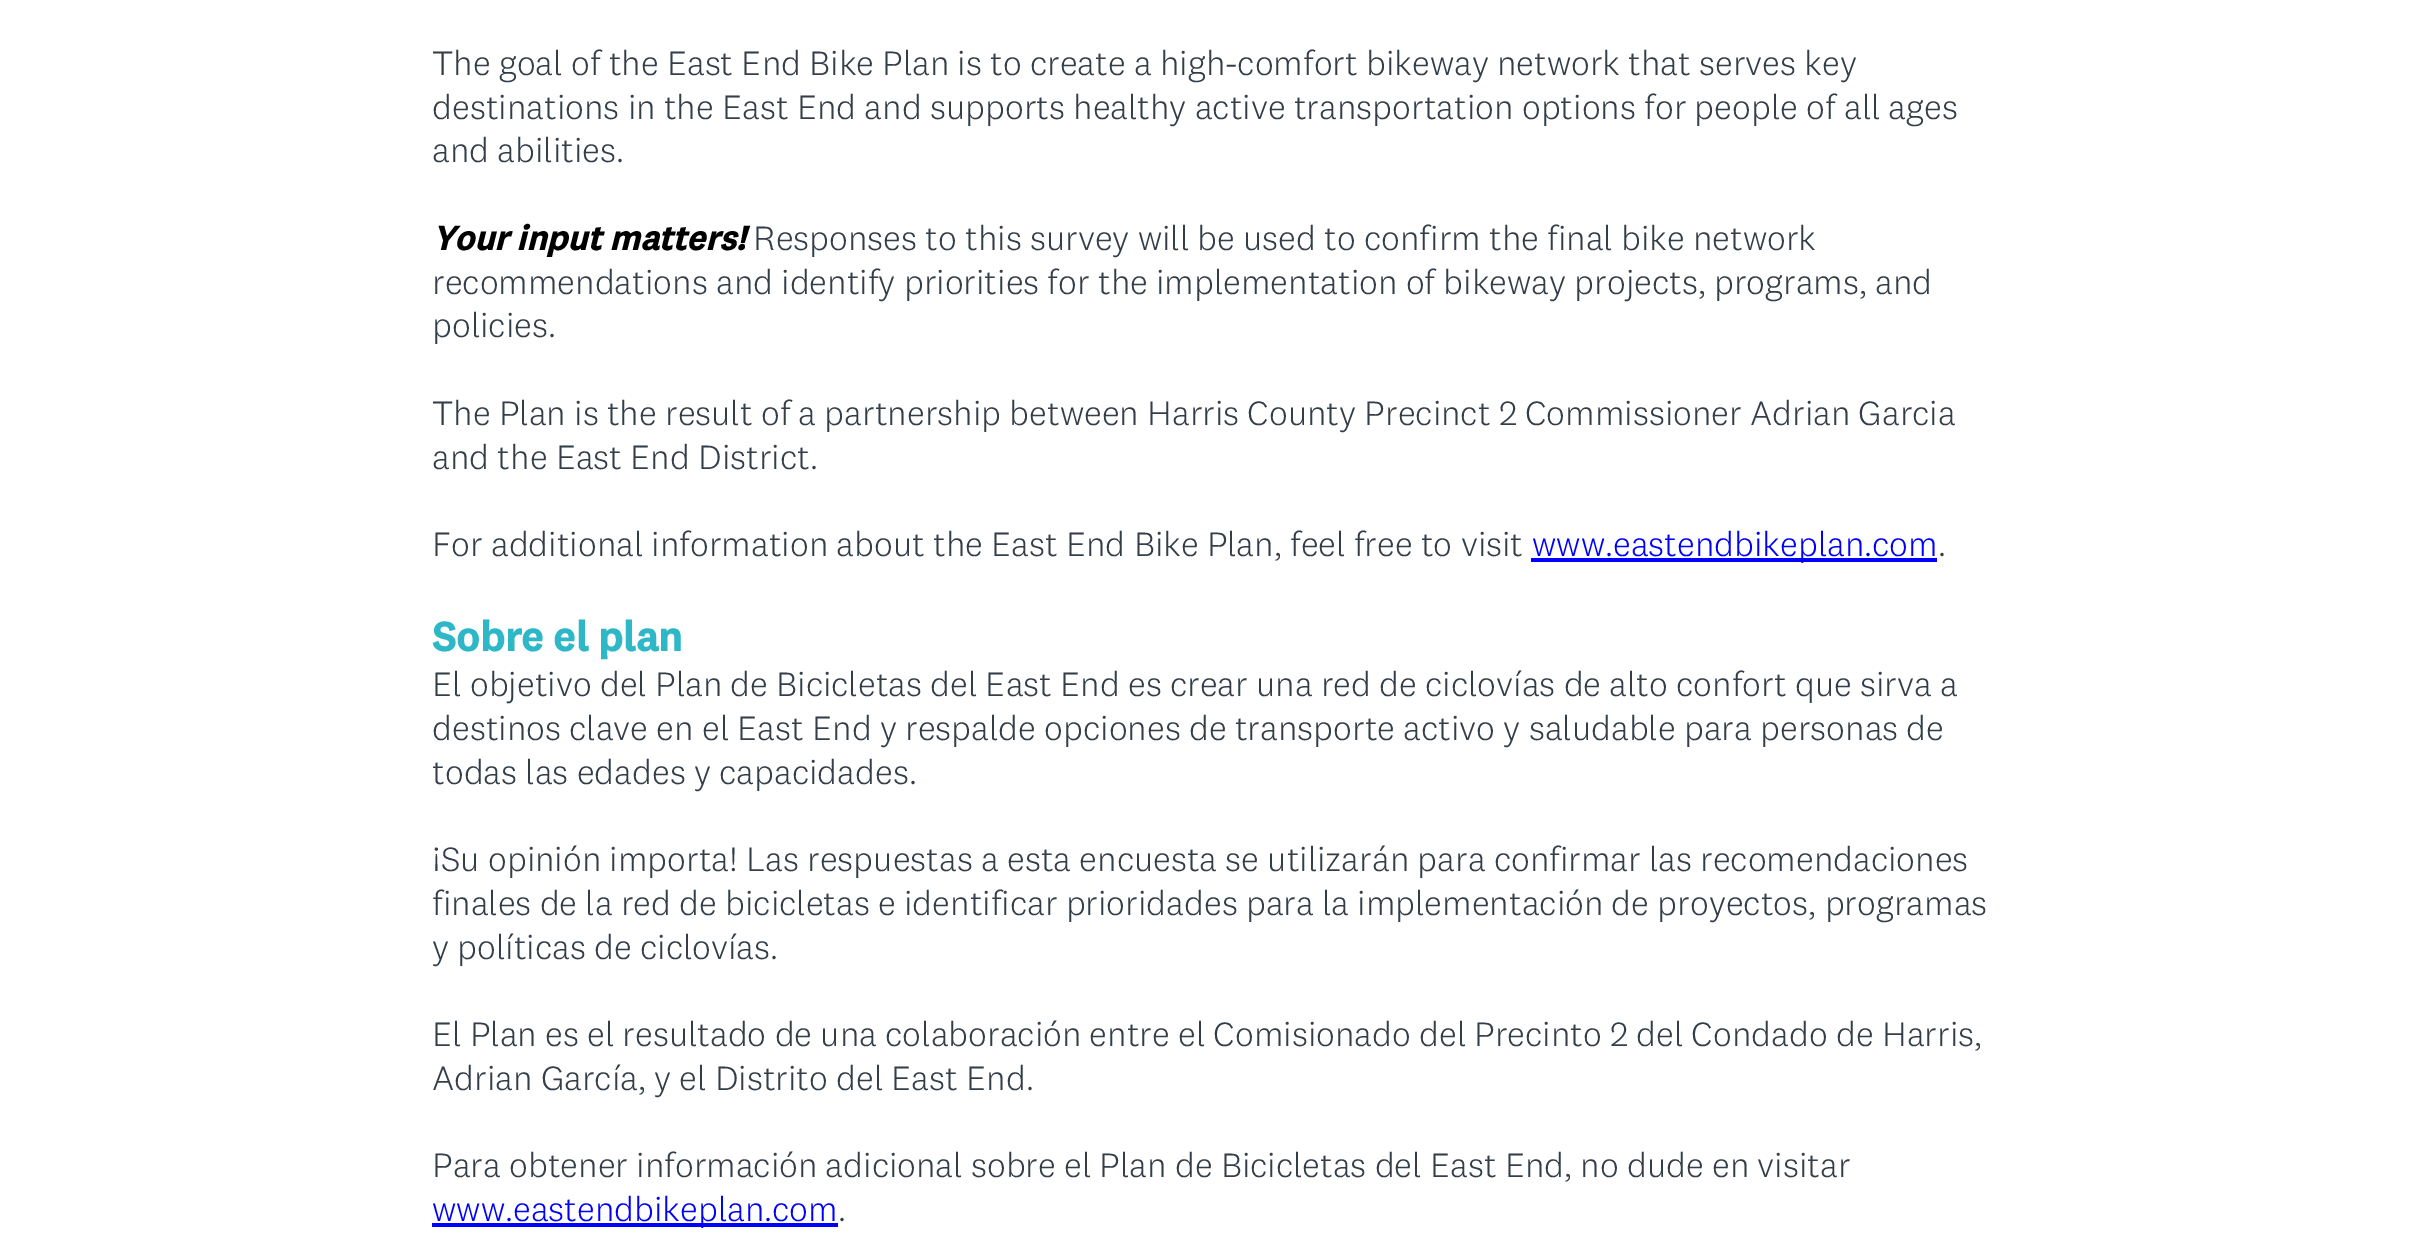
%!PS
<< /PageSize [2431 1259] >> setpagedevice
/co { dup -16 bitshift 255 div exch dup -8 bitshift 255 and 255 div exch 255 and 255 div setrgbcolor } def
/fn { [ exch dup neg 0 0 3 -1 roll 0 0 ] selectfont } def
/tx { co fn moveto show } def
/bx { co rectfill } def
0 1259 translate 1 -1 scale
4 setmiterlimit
0 0 2431 1259 16#FFFFFF bx
1531 558 406 4 16#0000FF bx
432 1223 406 4 16#0000FF bx
(The goal of the East End Bike Plan is to create a high-comfort bikeway network that serves key) 432 75 /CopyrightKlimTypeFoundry-Light 35 16#333E48 tx
(destinations in the East End and supports healthy active transportation options for people of all ages) 432 119 /CopyrightKlimTypeFoundry-Light 35 16#333E48 tx
(and abilities.) 432 162 /CopyrightKlimTypeFoundry-Light 35 16#333E48 tx
(Your input matters!) 432 250 /CopyrightKlimTypeFoundry-BoldItalic 35 16#000000 tx
(Responses to this survey will be used to confirm the final bike network) 753 250 /CopyrightKlimTypeFoundry-Light 35 16#333E48 tx
(recommendations and identify priorities for the implementation of bikeway projects, programs, and) 432 294 /CopyrightKlimTypeFoundry-Light 35 16#333E48 tx
(policies.) 432 337 /CopyrightKlimTypeFoundry-Light 35 16#333E48 tx
(The Plan is the result of a partnership between Harris County Precinct 2 Commissioner Adrian Garcia) 432 425 /CopyrightKlimTypeFoundry-Light 35 16#333E48 tx
(and the East End District.) 432 469 /CopyrightKlimTypeFoundry-Light 35 16#333E48 tx
(For additional information about the East End Bike Plan, feel free to visit) 432 556 /CopyrightKlimTypeFoundry-Light 35 16#333E48 tx
(www.eastendbikeplan.com) 1532 556 /CopyrightKlimTypeFoundry-Light 35 16#0000FF tx
(.) 1938 556 /CopyrightKlimTypeFoundry-Light 35 16#333E48 tx
(Sobre el plan) 432 651 /CopyrightKlimTypeFoundry-Bold 42 16#2EB7C7 tx
(El objetivo del Plan de Bicicletas del East End es crear una red de ciclovías de alto confort que sirva a) 432 696 /CopyrightKlimTypeFoundry-Light 35 16#333E48 tx
(destinos clave en el East End y respalde opciones de transporte activo y saludable para personas de) 432 740 /CopyrightKlimTypeFoundry-Light 35 16#333E48 tx
(todas las edades y capacidades.) 432 784 /CopyrightKlimTypeFoundry-Light 35 16#333E48 tx
(¡Su opinión importa! Las respuestas a esta encuesta se utilizarán para confirmar las recomendaciones) 432 871 /CopyrightKlimTypeFoundry-Light 35 16#333E48 tx
(finales de la red de bicicletas e identificar prioridades para la implementación de proyectos, programas) 432 915 /CopyrightKlimTypeFoundry-Light 35 16#333E48 tx
(y políticas de ciclovías.) 432 959 /CopyrightKlimTypeFoundry-Light 35 16#333E48 tx
(El Plan es el resultado de una colaboración entre el Comisionado del Precinto 2 del Condado de Harris,) 432 1046 /CopyrightKlimTypeFoundry-Light 35 16#333E48 tx
(Adrian García, y el Distrito del East End.) 432 1090 /CopyrightKlimTypeFoundry-Light 35 16#333E48 tx
(Para obtener información adicional sobre el Plan de Bicicletas del East End, no dude en visitar) 432 1177 /CopyrightKlimTypeFoundry-Light 35 16#333E48 tx
(www.eastendbikeplan.com) 432 1221 /CopyrightKlimTypeFoundry-Light 35 16#0000FF tx
(.) 838 1221 /CopyrightKlimTypeFoundry-Light 35 16#333E48 tx
showpage
